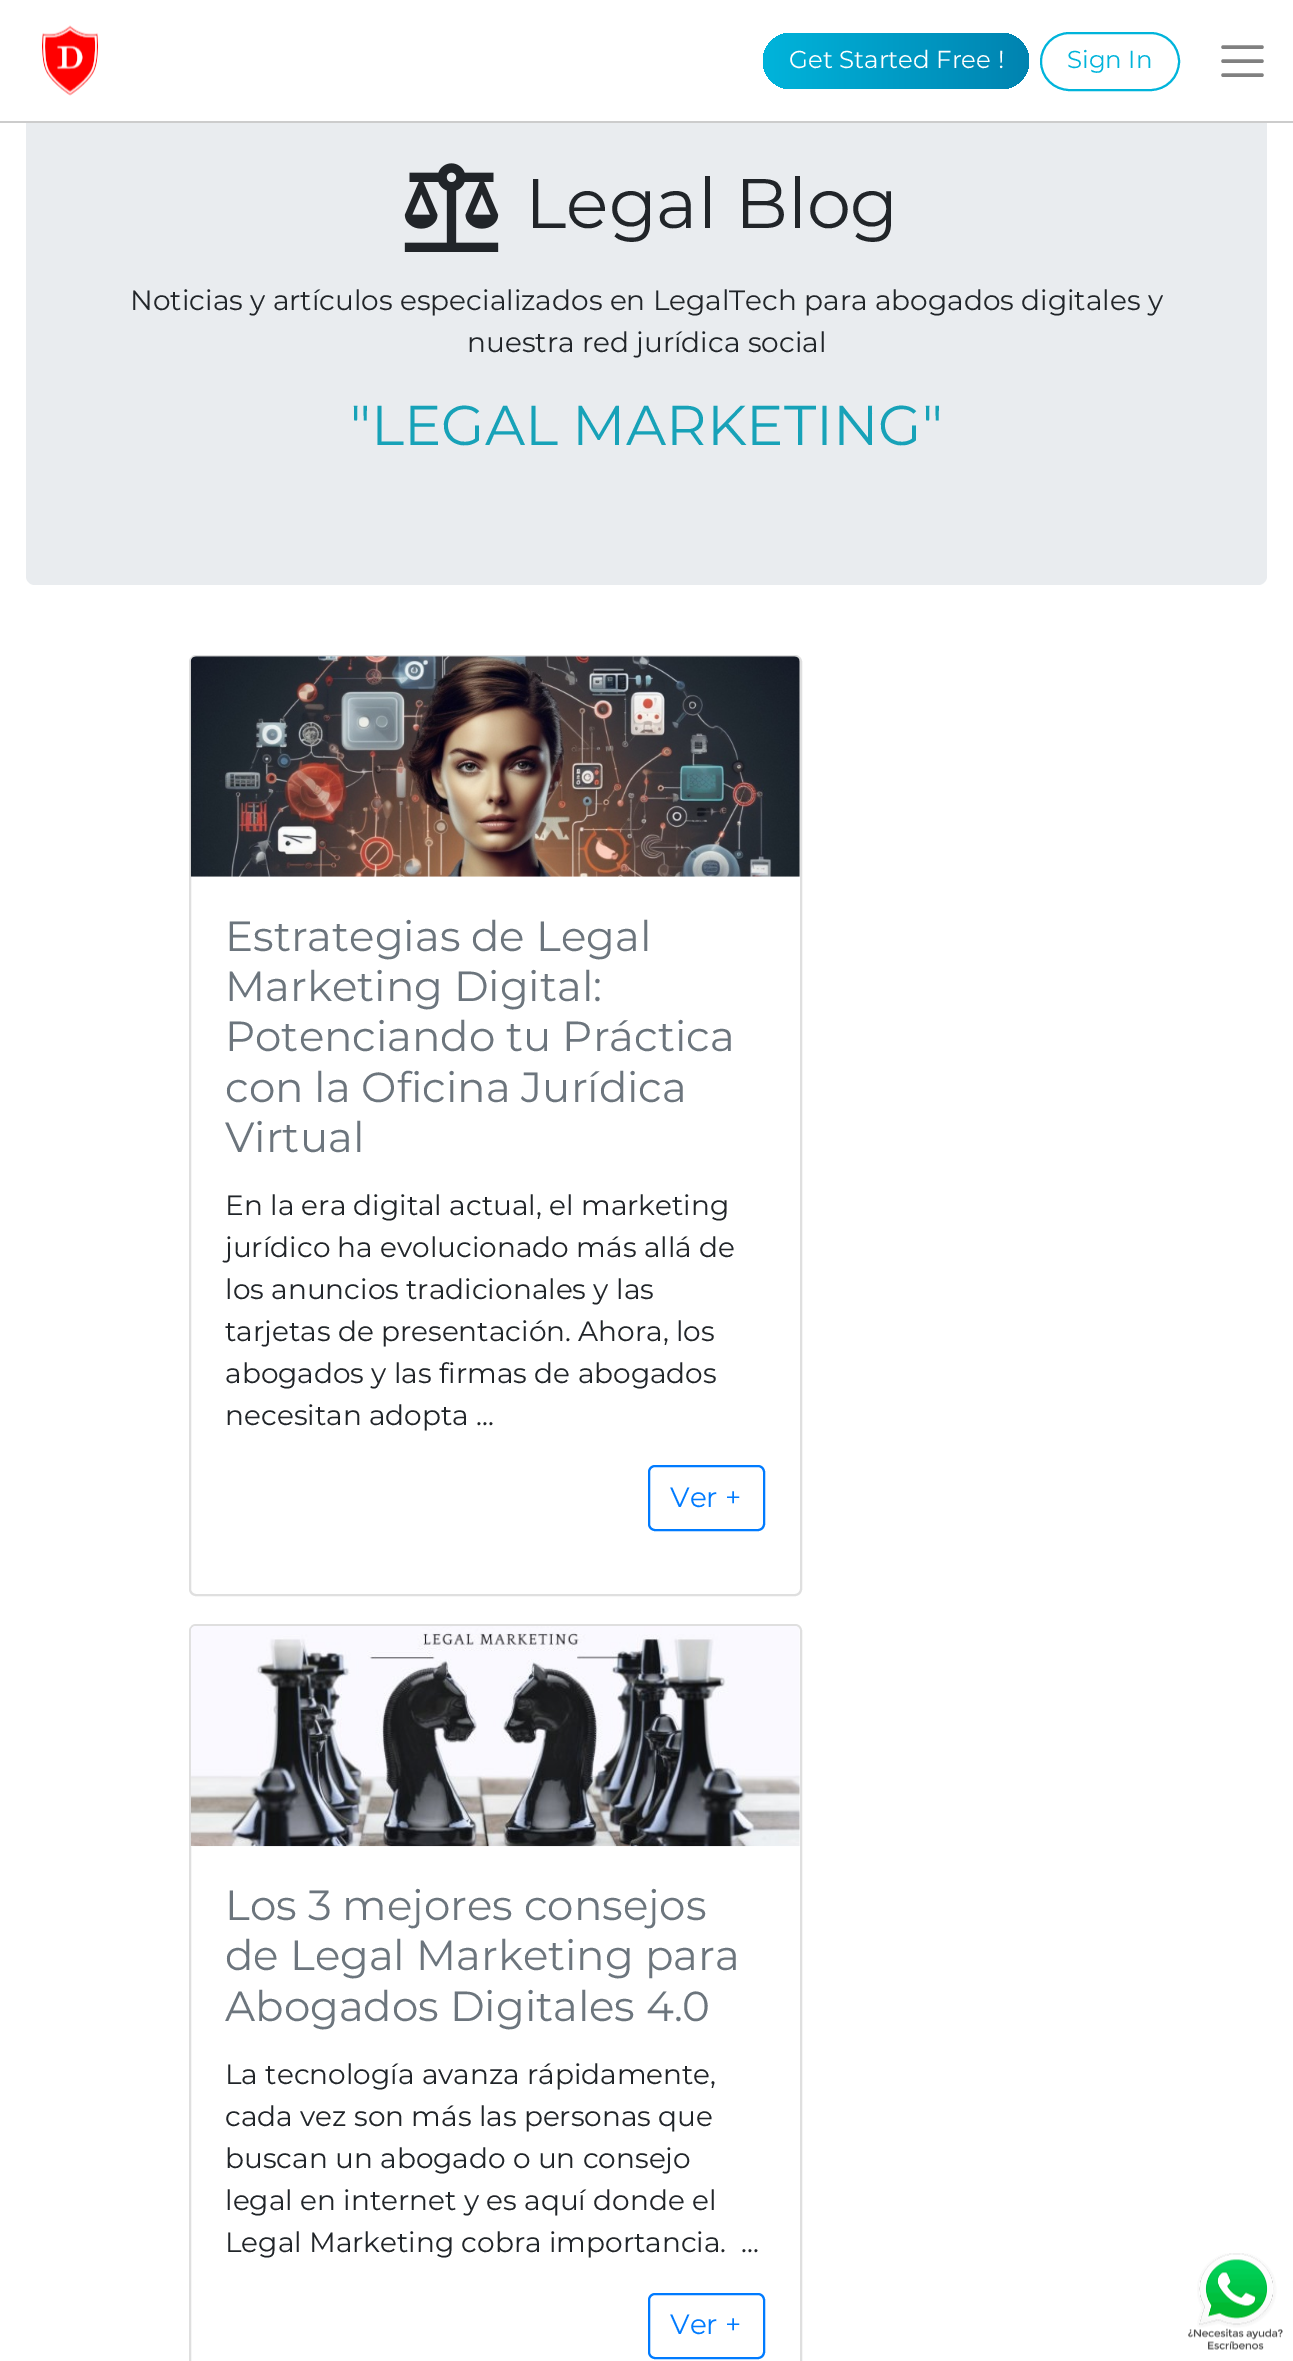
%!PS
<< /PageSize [1293 2361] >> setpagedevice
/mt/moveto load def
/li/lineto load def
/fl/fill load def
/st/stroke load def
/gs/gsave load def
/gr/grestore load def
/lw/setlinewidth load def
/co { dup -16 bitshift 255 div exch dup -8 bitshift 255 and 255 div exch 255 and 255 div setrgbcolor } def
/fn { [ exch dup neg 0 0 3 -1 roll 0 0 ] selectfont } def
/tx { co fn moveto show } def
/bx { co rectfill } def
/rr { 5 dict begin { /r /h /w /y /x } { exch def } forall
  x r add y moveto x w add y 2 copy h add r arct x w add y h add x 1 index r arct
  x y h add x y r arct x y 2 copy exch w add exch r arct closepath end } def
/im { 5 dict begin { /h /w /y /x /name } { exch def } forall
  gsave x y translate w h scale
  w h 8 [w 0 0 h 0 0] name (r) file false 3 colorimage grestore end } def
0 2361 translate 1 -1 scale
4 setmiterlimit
0 0 1293 2361 16#FFFFFF bx
16#E9ECEF co
26 42 1241 543 9 rr fl
26 42 1241 79 16#FFFFFF bx
0 121 1293 2 16#CCCCCC bx
(media/1.raw) 42 25 56 71 im
gs 763 33 266 56 28 rr clip newpath
<< /ShadingType 2 /ColorSpace /DeviceRGB /Coords [763 61 1029 61] /Extend [true true] /Function << /FunctionType 2 /Domain [0 1] /C0 [0 .706 .859] /C1 [0 .514 .69] /N 1 >> >> shfill gr
16#00B4DB co
2 lw
1041 33 138 57 28.5 rr st
16#808080 co
3.5 lw
1 setlinecap
1223 47 mt 1262 47 li 1223 61 mt 1262 61 li 1223 75 mt 1262 75 li st
(media/2.raw) 404 163 95 89 im
16#DFDFDF co
2 lw
0 setlinecap
190 656 611 939 6 rr st
(media/3.raw) 190 656 610 221 im
16#007BFF co
649 1466 115 64 6 rr st
16#DFDFDF co
190 1625 611 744 6 rr st
(media/4.raw) 190 1626 610 221 im
16#007BFF co
649 2294 115 64 6 rr st
(media/5.raw) 1188 2253 95 97 im
(Get Started Free !) 789 68 /Montserrat-Regular 24.5 16#FFFFFF tx
(Sign In) 1067 68 /Montserrat-Regular 24.5 16#00B4DB tx
(Legal Blog) 525 228 /Montserrat-Regular 70 16#212529 tx
(Noticias y artículos especializados en LegalTech para abogados digitales y) 130 310 /Montserrat-Regular 28 16#212529 tx
(nuestra red jurídica social) 467 352 /Montserrat-Regular 28 16#212529 tx
("LEGAL MARKETING") 350 445 /Montserrat-Regular 56 16#17A2B8 tx
(Estrategias de Legal) 225 951 /Montserrat-Regular 42 16#6C757D tx
(Marketing Digital:) 225 1001 /Montserrat-Regular 42 16#6C757D tx
(Potenciando tu Práctica) 225 1051 /Montserrat-Regular 42 16#6C757D tx
(con la Oficina Jurídica) 225 1102 /Montserrat-Regular 42 16#6C757D tx
(Virtual) 225 1152 /Montserrat-Regular 42 16#6C757D tx
(En la era digital actual, el marketing) 225 1215 /Montserrat-Regular 28 16#212529 tx
(jurídico ha evolucionado más allá de) 225 1257 /Montserrat-Regular 28 16#212529 tx
(los anuncios tradicionales y las) 225 1299 /Montserrat-Regular 28 16#212529 tx
(tarjetas de presentación. Ahora, los) 225 1341 /Montserrat-Regular 28 16#212529 tx
(abogados y las firmas de abogados) 225 1383 /Montserrat-Regular 28 16#212529 tx
(necesitan adopta ...) 225 1425 /Montserrat-Regular 28 16#212529 tx
(Ver +) 670 1507 /Montserrat-Regular 28 16#007BFF tx
(Los 3 mejores consejos) 225 1920 /Montserrat-Regular 42 16#6C757D tx
(de Legal Marketing para) 225 1970 /Montserrat-Regular 42 16#6C757D tx
(Abogados Digitales 4.0) 225 2021 /Montserrat-Regular 42 16#6C757D tx
(La tecnología avanza rápidamente,) 225 2084 /Montserrat-Regular 28 16#212529 tx
(cada vez son más las personas que) 225 2126 /Montserrat-Regular 28 16#212529 tx
(buscan un abogado o un consejo) 225 2168 /Montserrat-Regular 28 16#212529 tx
(legal en internet y es aquí donde el) 225 2210 /Montserrat-Regular 28 16#212529 tx
(Legal Marketing cobra importancia.  ...) 225 2252 /Montserrat-Regular 28 16#212529 tx
(Ver +) 670 2334 /Montserrat-Regular 28 16#007BFF tx
showpage
